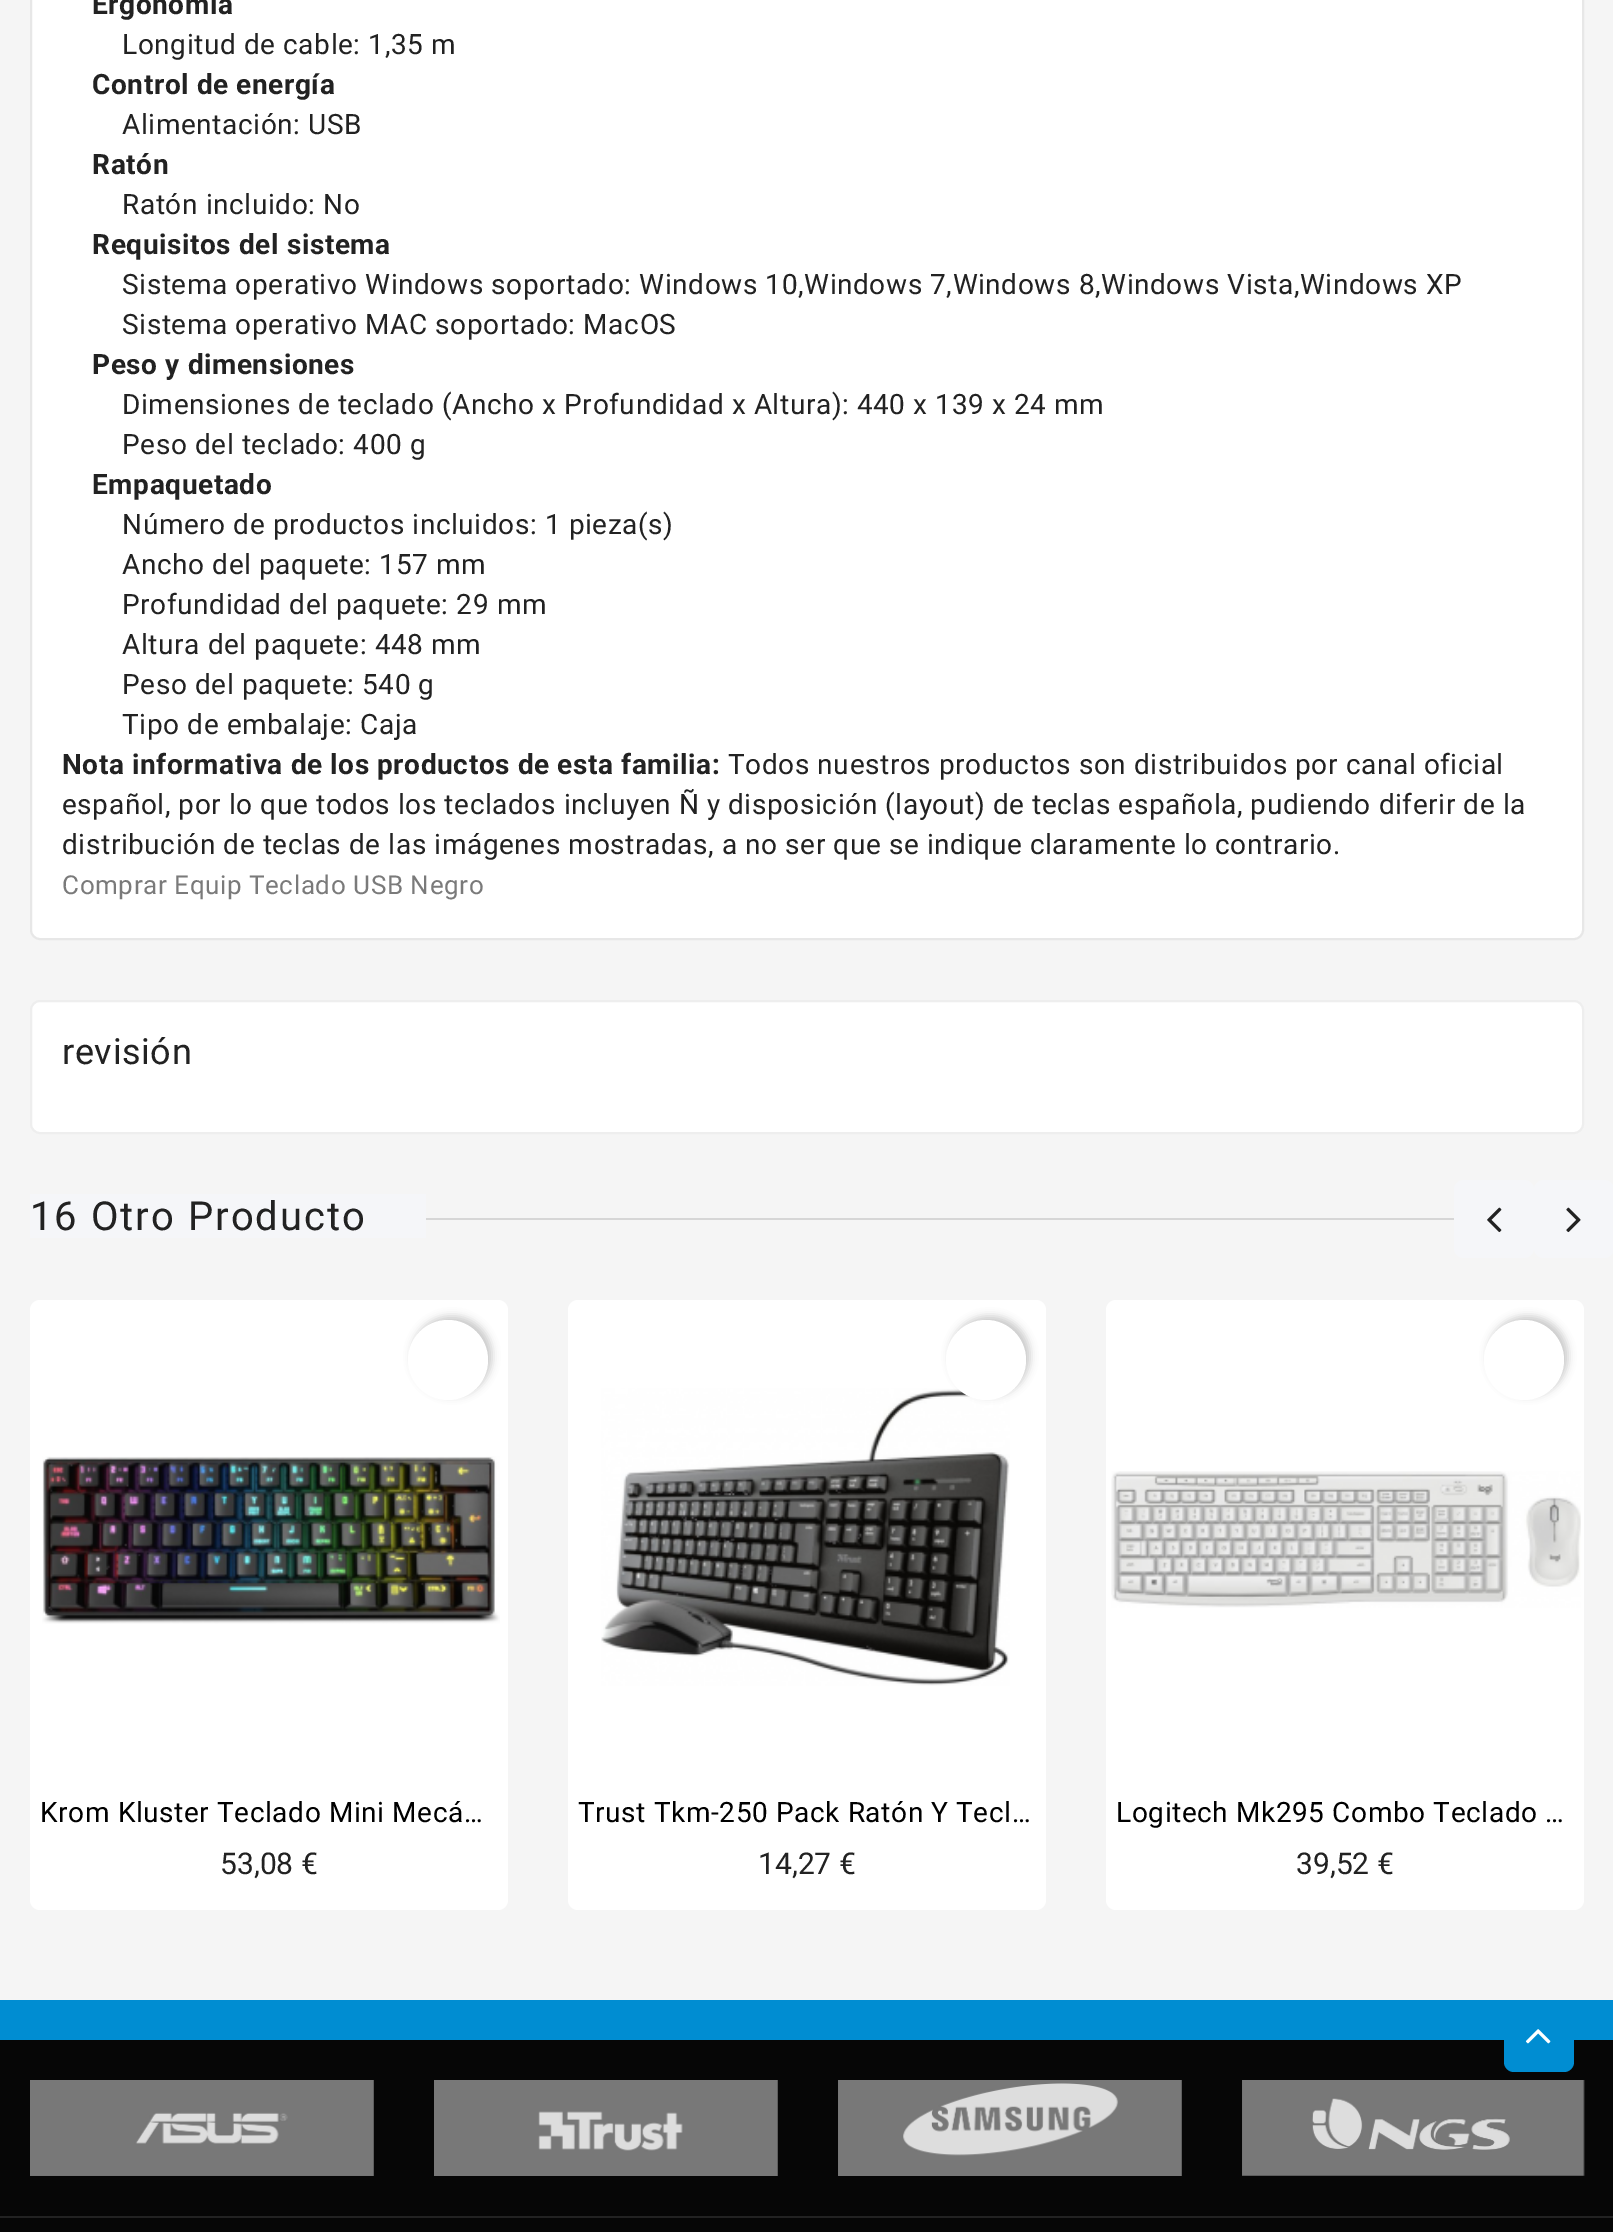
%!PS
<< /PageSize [1613 2232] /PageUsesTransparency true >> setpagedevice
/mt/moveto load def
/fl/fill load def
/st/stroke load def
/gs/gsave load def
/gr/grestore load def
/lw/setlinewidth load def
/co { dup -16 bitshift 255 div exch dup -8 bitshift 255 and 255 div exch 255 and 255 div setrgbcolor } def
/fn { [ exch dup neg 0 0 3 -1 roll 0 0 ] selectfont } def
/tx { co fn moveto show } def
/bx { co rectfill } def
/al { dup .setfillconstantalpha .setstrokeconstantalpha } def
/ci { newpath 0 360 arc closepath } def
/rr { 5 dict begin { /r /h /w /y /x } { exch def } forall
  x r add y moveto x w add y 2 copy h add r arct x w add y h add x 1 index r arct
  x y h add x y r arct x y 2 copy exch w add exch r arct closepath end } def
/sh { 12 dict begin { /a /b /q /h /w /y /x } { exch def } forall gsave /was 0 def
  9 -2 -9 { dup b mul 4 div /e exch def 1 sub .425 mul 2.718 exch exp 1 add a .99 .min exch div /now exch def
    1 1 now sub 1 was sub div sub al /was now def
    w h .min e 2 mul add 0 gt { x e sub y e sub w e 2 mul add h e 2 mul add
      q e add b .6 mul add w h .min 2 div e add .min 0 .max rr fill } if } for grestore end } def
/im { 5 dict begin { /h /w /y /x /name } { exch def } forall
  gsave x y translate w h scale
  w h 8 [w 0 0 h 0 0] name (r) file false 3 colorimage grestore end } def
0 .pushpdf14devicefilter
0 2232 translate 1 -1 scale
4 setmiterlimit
0 0 1613 2232 16#F5F5F5 bx
16#FFFFFF co
31 -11 1552 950 9 rr gs fl gr
16#E7E7E7 co
2 lw
st
16#FFFFFF co
31 1001 1552 132 9 rr gs fl gr
16#EEEEEE co
st
30 1194 396 44 16#F5F6F9 bx
426 1218 1028 2 16#D6D6D6 bx
16#F5F6F9 co
1454 1180 80 78 10 rr fl
(media/1.raw) 1487 1207 15 26 im
1534 1180 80 78 10 rr fl
(media/2.raw) 1566 1207 15 26 im
16#FFFFFF co
30 1300 478 610 10 rr fl
16#000000 co
412 1316 80 80 40 4 .2 sh
16#FFFFFF co
448 1360 40 ci fl
(media/3.raw) 42 1456 458 168 im
568 1300 478 610 10 rr fl
(media/4.raw) 601 1388 409 298 im
16#000000 co
950 1316 80 80 40 4 .2 sh
16#FFFFFF co
986 1360 40 ci fl
1106 1300 478 610 10 rr fl
16#000000 co
1488 1316 80 80 40 4 .2 sh
16#FFFFFF co
1524 1360 40 ci fl
(media/5.raw) 1111 1471 470 137 im
0 2000 1613 40 16#008DD2 bx
0 2040 1613 192 16#060606 bx
16#008DD2 co
1504 2002 70 70 10 rr fl
(media/6.raw) 1525 2029 26 15 im
0 2216 1613 2 16#222222 bx
(media/7.raw) 30 2080 344 96 im
(media/8.raw) 434 2080 344 96 im
(media/9.raw) 838 2080 344 96 im
(media/10.raw) 1242 2080 343 96 im
/Roboto-Bold 28 fn
92 14 mt .6 0 (Ergonomía) ashow
/Roboto-Regular 28 fn
122 54 mt .6 0 (Longitud de cable: 1,35 m) ashow
/Roboto-Bold 28 fn
92 94 mt .6 0 (Control de energía) ashow
/Roboto-Regular 28 fn
122 134 mt .6 0 (Alimentación: USB) ashow
/Roboto-Bold 28 fn
92 174 mt .6 0 (Ratón) ashow
/Roboto-Regular 28 fn
122 214 mt .6 0 (Ratón incluido: No) ashow
/Roboto-Bold 28 fn
92 254 mt .6 0 (Requisitos del sistema) ashow
/Roboto-Regular 28 fn
122 294 mt .6 0 (Sistema operativo Windows soportado: Windows 10,Windows 7,Windows 8,Windows Vista,Windows XP) ashow
122 334 mt .6 0 (Sistema operativo MAC soportado: MacOS) ashow
/Roboto-Bold 28 fn
92 374 mt .6 0 (Peso y dimensiones) ashow
/Roboto-Regular 28 fn
122 414 mt .6 0 (Dimensiones de teclado \(Ancho x Profundidad x Altura\): 440 x 139 x 24 mm) ashow
122 454 mt .6 0 (Peso del teclado: 400 g) ashow
/Roboto-Bold 28 fn
92 494 mt .6 0 (Empaquetado) ashow
/Roboto-Regular 28 fn
122 534 mt .6 0 (Número de productos incluidos: 1 pieza\(s\)) ashow
122 574 mt .6 0 (Ancho del paquete: 157 mm) ashow
122 614 mt .6 0 (Profundidad del paquete: 29 mm) ashow
122 654 mt .6 0 (Altura del paquete: 448 mm) ashow
122 694 mt .6 0 (Peso del paquete: 540 g) ashow
122 734 mt .6 0 (Tipo de embalaje: Caja) ashow
/Roboto-Bold 28 fn
62 774 mt .6 0 (Nota informativa de los productos de esta familia:) ashow
/Roboto-Regular 28 fn
728 774 mt .6 0 (Todos nuestros productos son distribuidos por canal oficial) ashow
62 814 mt .6 0 (español, por lo que todos los teclados incluyen Ñ y disposición \(layout\) de teclas española, pudiendo diferir de la) ashow
62 854 mt .6 0 (distribución de teclas de las imágenes mostradas, a no ser que se indique claramente lo contrario.) ashow
/Roboto-Regular 26 fn
16#7A7A7A co
62 894 mt .6 0 (Comprar Equip Teclado USB Negro) ashow
/Roboto-Regular 36 fn
16#222222 co
62 1064 mt .6 0 (revisión) ashow
/Roboto-Regular 40 fn
30 1230 mt 2 0 (16 Otro Producto) ashow
/Roboto-Regular 28 fn
16#000000 co
40 1822 mt .6 0 (Krom Kluster Teclado Mini Mecá…) ashow
(53,08 €) 220 1874 /Roboto-Regular 30 16#222222 tx
/Roboto-Regular 28 fn
16#000000 co
578 1822 mt .6 0 (Trust Tkm-250 Pack Ratón Y Tecl…) ashow
(14,27 €) 758 1874 /Roboto-Regular 30 16#222222 tx
/Roboto-Regular 28 fn
16#000000 co
1116 1822 mt .6 0 (Logitech Mk295 Combo Teclado …) ashow
(39,52 €) 1296 1874 /Roboto-Regular 30 16#222222 tx
.poppdf14devicefilter showpage
